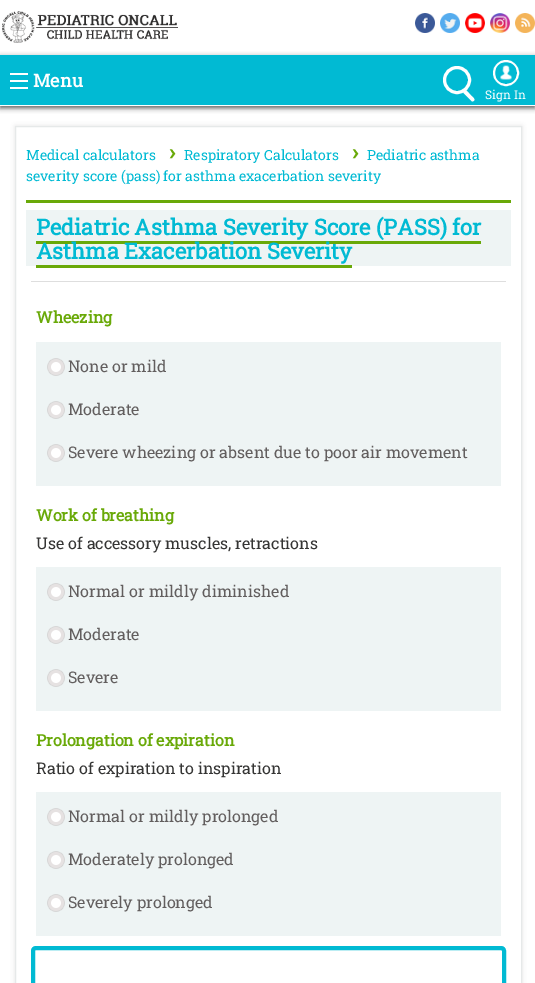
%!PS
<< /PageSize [535 983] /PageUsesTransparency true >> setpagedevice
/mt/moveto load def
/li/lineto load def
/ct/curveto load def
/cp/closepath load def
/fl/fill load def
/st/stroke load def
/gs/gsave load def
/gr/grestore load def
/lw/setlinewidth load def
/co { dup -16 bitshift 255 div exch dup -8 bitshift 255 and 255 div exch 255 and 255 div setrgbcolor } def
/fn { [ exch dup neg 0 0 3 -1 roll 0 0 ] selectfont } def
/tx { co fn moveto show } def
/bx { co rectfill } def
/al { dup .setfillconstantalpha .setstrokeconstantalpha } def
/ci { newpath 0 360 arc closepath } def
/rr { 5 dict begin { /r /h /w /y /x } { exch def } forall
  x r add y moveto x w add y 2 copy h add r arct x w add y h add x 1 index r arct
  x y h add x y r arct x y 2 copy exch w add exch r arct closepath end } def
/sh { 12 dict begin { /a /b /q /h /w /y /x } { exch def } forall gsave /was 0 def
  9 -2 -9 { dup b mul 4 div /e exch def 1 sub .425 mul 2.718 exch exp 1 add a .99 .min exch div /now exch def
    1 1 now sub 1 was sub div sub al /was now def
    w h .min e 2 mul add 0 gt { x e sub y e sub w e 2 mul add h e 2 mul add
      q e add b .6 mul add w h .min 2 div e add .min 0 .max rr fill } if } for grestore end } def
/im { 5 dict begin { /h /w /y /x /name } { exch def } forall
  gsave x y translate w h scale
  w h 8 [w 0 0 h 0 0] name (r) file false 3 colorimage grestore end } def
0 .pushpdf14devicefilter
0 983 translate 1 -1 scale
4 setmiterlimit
0 0 535 983 16#FFFFFF bx
(media/1.raw) 2 11 176 32 im
(media/2.raw) 415 13 20 20 im
(media/3.raw) 440 13 20 20 im
(media/4.raw) 465 13 20 20 im
(media/5.raw) 490 13 20 20 im
(media/6.raw) 515 13 20 20 im
16#000000 co
0 57 535 51 0 2.5 .65 sh
0 55 535 50 16#01BAD3 bx
0 105 535 1 16#FFFFFF bx
10 87 18 2 16#FFFFFF bx
10 80 18 2 16#FFFFFF bx
10 73 18 2 16#FFFFFF bx
3 lw
457 80 12.5 ci st
467 91 mt 471.5 96 li 472.5 97 476 99.5 473.5 101 ct 473 101.5 472.5 101.5 472 101.5 ct 463.5 93 li 463 91 465.5 89.5 467 91 ct cp fl
2 lw
506 73 12 ci st
(media/7.raw) 496 63 20 20 im
gs
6 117 mt 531 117 li 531 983 li 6 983 li cp 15 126 mt 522 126 li 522 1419 li 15 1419 li cp eoclip newpath
16#A39DA3 co
15 126 507 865 0 2.5 .3 sh
gr
16#E6E9E9 co
1 lw
15.5 126.5 506 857 rectstroke
26 200 485 3 16#69A908 bx
26 210 485 56 16#EEF4F4 bx
36 241 445 3 16#69A908 bx
36 265 316 3 16#69A908 bx
31 281 475 1 16#DEDEDE bx
36 342 465 144 16#EEF4F4 bx
(media/8.raw) 47 358 18 18 im
(media/8.raw) 47 401 18 18 im
(media/8.raw) 47 444 18 18 im
36 567 465 144 16#EEF4F4 bx
(media/8.raw) 47 583 18 18 im
(media/8.raw) 47 626 18 18 im
(media/8.raw) 47 669 18 18 im
36 792 465 144 16#EEF4F4 bx
(media/8.raw) 47 808 18 18 im
(media/8.raw) 47 851 18 18 im
(media/8.raw) 47 894 18 18 im
16#01BAD3 co
4 lw
33 948 471 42 3 rr st
(Menu) 33 87 /RobotoSlab-Bold 18 16#FFFFFF tx
(Sign In) 485 99 /RobotoSlab-Regular 12 16#FFFFFF tx
(Medical calculators) 26 160 /RobotoSlab-Regular 14 16#01BAD3 tx
(›) 169 160 /RobotoSlab-Bold 22 16#69A908 tx
(Respiratory Calculators) 184 160 /RobotoSlab-Regular 14 16#01BAD3 tx
(›) 352 160 /RobotoSlab-Bold 22 16#69A908 tx
(Pediatric asthma) 367 160 /RobotoSlab-Regular 14 16#01BAD3 tx
(severity score \(pass\) for asthma exacerbation severity) 26 181 /RobotoSlab-Regular 14 16#01BAD3 tx
(Pediatric Asthma Severity Score \(PASS\) for) 36 235 /RobotoSlab-Bold 22 16#01BAD3 tx
(Asthma Exacerbation Severity) 36 259 /RobotoSlab-Bold 22 16#01BAD3 tx
(Wheezing) 36 323 /RobotoSlab-Bold 16 16#69A908 tx
(None or mild) 68 372 /RobotoSlab-Regular 16 16#625E5E tx
(Moderate) 68 415 /RobotoSlab-Regular 16 16#625E5E tx
(Severe wheezing or absent due to poor air movement) 68 458 /RobotoSlab-Regular 16 16#625E5E tx
(Work of breathing) 36 521 /RobotoSlab-Bold 16 16#69A908 tx
(Use of accessory muscles, retractions) 36 549 /RobotoSlab-Regular 16 16#353534 tx
(Normal or mildly diminished) 68 597 /RobotoSlab-Regular 16 16#625E5E tx
(Moderate) 68 640 /RobotoSlab-Regular 16 16#625E5E tx
(Severe) 68 683 /RobotoSlab-Regular 16 16#625E5E tx
(Prolongation of expiration) 36 746 /RobotoSlab-Bold 16 16#69A908 tx
(Ratio of expiration to inspiration) 36 774 /RobotoSlab-Regular 16 16#353534 tx
(Normal or mildly prolonged) 68 822 /RobotoSlab-Regular 16 16#625E5E tx
(Moderately prolonged) 68 865 /RobotoSlab-Regular 16 16#625E5E tx
(Severely prolonged) 68 908 /RobotoSlab-Regular 16 16#625E5E tx
.poppdf14devicefilter showpage
